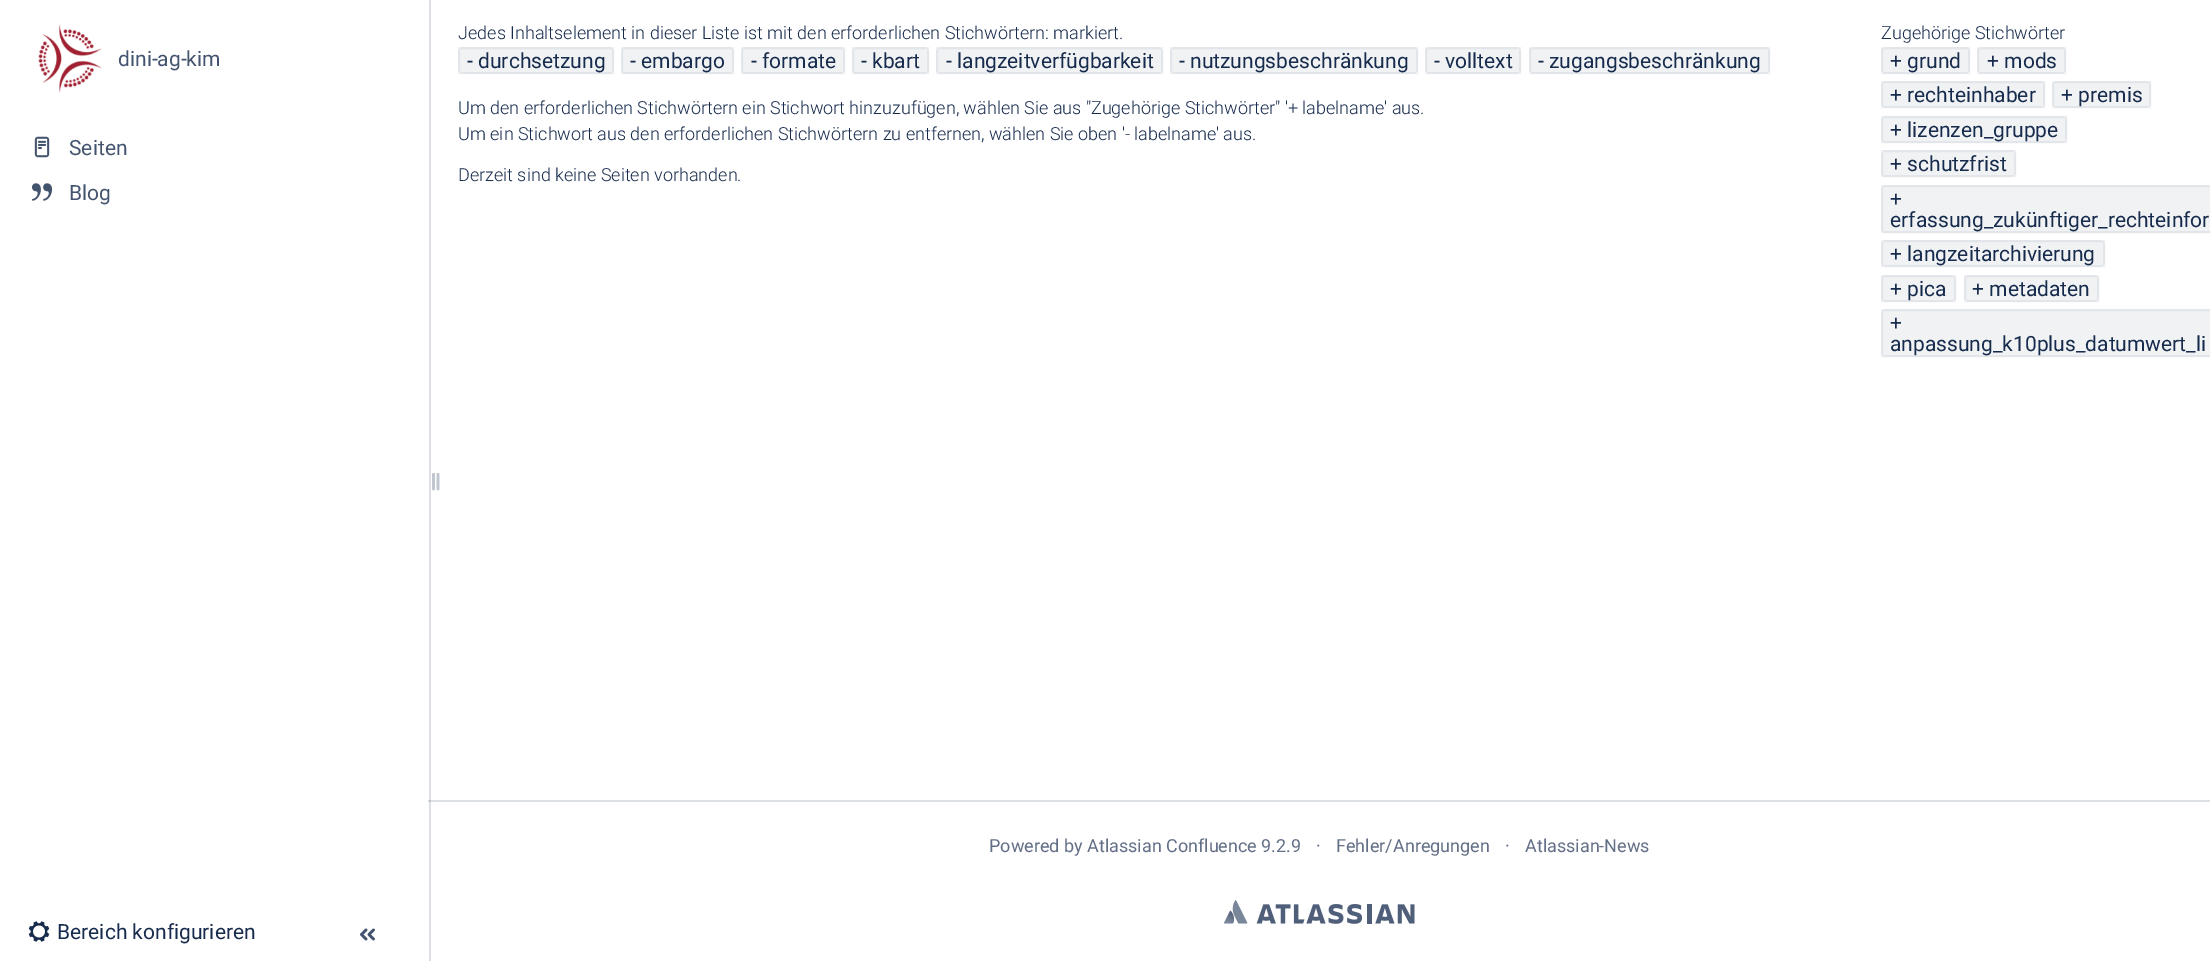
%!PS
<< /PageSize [2210 961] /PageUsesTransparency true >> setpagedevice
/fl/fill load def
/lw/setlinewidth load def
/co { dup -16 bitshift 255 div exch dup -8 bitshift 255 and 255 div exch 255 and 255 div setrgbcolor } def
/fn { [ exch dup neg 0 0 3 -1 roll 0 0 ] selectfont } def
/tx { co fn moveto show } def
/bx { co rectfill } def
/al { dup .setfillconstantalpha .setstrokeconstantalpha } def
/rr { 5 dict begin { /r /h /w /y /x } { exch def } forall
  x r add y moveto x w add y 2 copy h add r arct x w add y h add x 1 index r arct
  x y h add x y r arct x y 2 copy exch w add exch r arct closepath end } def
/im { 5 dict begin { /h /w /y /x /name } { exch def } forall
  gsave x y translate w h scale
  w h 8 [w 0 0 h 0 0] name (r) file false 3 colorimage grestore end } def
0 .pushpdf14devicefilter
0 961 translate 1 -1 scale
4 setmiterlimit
0 0 2210 961 16#FFFFFF bx
429 0 2 961 16#DDDFE5 bx
(media/1.raw) 38 24 64 69 im
(media/2.raw) 34 136 16 22 im
(media/3.raw) 31 183 22 18 im
(media/4.raw) 432 473 8 18 im
(media/5.raw) 28 921 22 21 im
(media/6.raw) 360 928 15 13 im
428 800 1782 2 16#DDE0E5 bx
429 800 2 2 16#BFC5CE bx
16#F0F2F4 co
458 47 156 27 5 rr fl
0.06 al
16#091E42 co
2 lw
459 48 154 25 rectstroke
1 al
16#F0F2F4 co
621 47 113 27 5 rr fl
0.06 al
16#091E42 co
622 48 111 25 rectstroke
1 al
16#F0F2F4 co
741 47 104 27 5 rr fl
0.06 al
16#091E42 co
742 48 102 25 rectstroke
1 al
16#F0F2F4 co
852 47 77 27 5 rr fl
0.06 al
16#091E42 co
853 48 75 25 rectstroke
1 al
16#F0F2F4 co
936 47 227 27 5 rr fl
0.06 al
16#091E42 co
937 48 225 25 rectstroke
1 al
16#F0F2F4 co
1170 47 248 27 5 rr fl
0.06 al
16#091E42 co
1171 48 246 25 rectstroke
1 al
16#F0F2F4 co
1425 47 96 27 5 rr fl
0.06 al
16#091E42 co
1426 48 94 25 rectstroke
1 al
16#F0F2F4 co
1529 47 241 27 5 rr fl
0.06 al
16#091E42 co
1530 48 239 25 rectstroke
1 al
16#F0F2F4 co
1881 47 89 27 5 rr fl
0.06 al
16#091E42 co
1882 48 87 25 rectstroke
1 al
16#F0F2F4 co
1977 47 89 27 5 rr fl
0.06 al
16#091E42 co
1978 48 87 25 rectstroke
1 al
16#F0F2F4 co
1881 81 164 27 5 rr fl
0.06 al
16#091E42 co
1882 82 162 25 rectstroke
1 al
16#F0F2F4 co
2052 81 99 27 5 rr fl
0.06 al
16#091E42 co
2053 82 97 25 rectstroke
1 al
16#F0F2F4 co
1881 116 186 27 5 rr fl
0.06 al
16#091E42 co
1882 117 184 25 rectstroke
1 al
16#F0F2F4 co
1881 150 135 27 5 rr fl
0.06 al
16#091E42 co
1882 151 133 25 rectstroke
1 al
16#F0F2F4 co
1881 185 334 48 5 rr fl
0.06 al
16#091E42 co
1882 186 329 46 rectstroke
1 al
16#F0F2F4 co
1881 240 224 27 5 rr fl
0.06 al
16#091E42 co
1882 241 222 25 rectstroke
1 al
16#F0F2F4 co
1881 275 75 27 5 rr fl
0.06 al
16#091E42 co
1882 276 73 25 rectstroke
1 al
16#F0F2F4 co
1964 275 135 27 5 rr fl
0.06 al
16#091E42 co
1965 276 133 25 rectstroke
1 al
16#F0F2F4 co
1881 309 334 48 5 rr fl
0.06 al
16#091E42 co
1882 310 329 46 rectstroke
1 al
(media/7.raw) 1224 900 191 24 im
(dini-ag-kim) 118 66 /Roboto-Regular 21 16#44546F tx
(Seiten) 69 155 /Roboto-Regular 21 16#44546F tx
(Blog) 69 200 /Roboto-Regular 21 16#44546F tx
(Bereich konfigurieren) 57 939 /Roboto-Regular 21 16#172B4D tx
(Jedes Inhaltselement in dieser Liste ist mit den erforderlichen Stichwörtern: markiert.) 458 39 /Roboto-Light 18 16#172B4D tx
(- durchsetzung) 467 68 /Roboto-Regular 21 16#172B4D tx
(- embargo) 630 68 /Roboto-Regular 21 16#172B4D tx
(- formate) 751 68 /Roboto-Regular 21 16#172B4D tx
(- kbart) 861 68 /Roboto-Regular 21 16#172B4D tx
(- langzeitverfügbarkeit) 946 68 /Roboto-Regular 21 16#172B4D tx
(- nutzungsbeschränkung) 1179 68 /Roboto-Regular 21 16#172B4D tx
(- volltext) 1434 68 /Roboto-Regular 21 16#172B4D tx
(- zugangsbeschränkung) 1538 68 /Roboto-Regular 21 16#172B4D tx
(Um den erforderlichen Stichwörtern ein Stichwort hinzuzufügen, wählen Sie aus "Zugehörige Stichwörter" '+ labelname' aus.) 458 114 /Roboto-Light 18 16#172B4D tx
(Um ein Stichwort aus den erforderlichen Stichwörtern zu entfernen, wählen Sie oben '- labelname' aus.) 458 140 /Roboto-Light 18 16#172B4D tx
(Derzeit sind keine Seiten vorhanden.) 458 181 /Roboto-Light 18 16#172B4D tx
(Zugehörige Stichwörter) 1881 39 /Roboto-Light 18 16#172B4D tx
(+ grund) 1890 68 /Roboto-Regular 21 16#172B4D tx
(+ mods) 1987 68 /Roboto-Regular 21 16#172B4D tx
(+ rechteinhaber) 1890 102 /Roboto-Regular 21 16#172B4D tx
(+ premis) 2061 102 /Roboto-Regular 21 16#172B4D tx
(+ lizenzen_gruppe) 1890 137 /Roboto-Regular 21 16#172B4D tx
(+ schutzfrist) 1890 171 /Roboto-Regular 21 16#172B4D tx
(+) 1890 206 /Roboto-Regular 21 16#172B4D tx
(erfassung_zukünftiger_rechteinfor) 1890 227 /Roboto-Regular 21 16#172B4D tx
(+ langzeitarchivierung) 1890 261 /Roboto-Regular 21 16#172B4D tx
(+ pica) 1890 296 /Roboto-Regular 21 16#172B4D tx
(+ metadaten) 1972 296 /Roboto-Regular 21 16#172B4D tx
(+) 1890 330 /Roboto-Regular 21 16#172B4D tx
(anpassung_k10plus_datumwert_li) 1890 351 /Roboto-Regular 21 16#172B4D tx
(Powered by Atlassian Confluence 9.2.9) 989 852 /Roboto-Regular 18 16#626F86 tx
(·) 1316 852 /Roboto-Regular 18 16#626F86 tx
(Fehler/Anregungen) 1336 852 /Roboto-Regular 18 16#626F86 tx
(·) 1505 852 /Roboto-Regular 18 16#626F86 tx
(Atlassian-News) 1525 852 /Roboto-Regular 18 16#626F86 tx
.poppdf14devicefilter showpage
